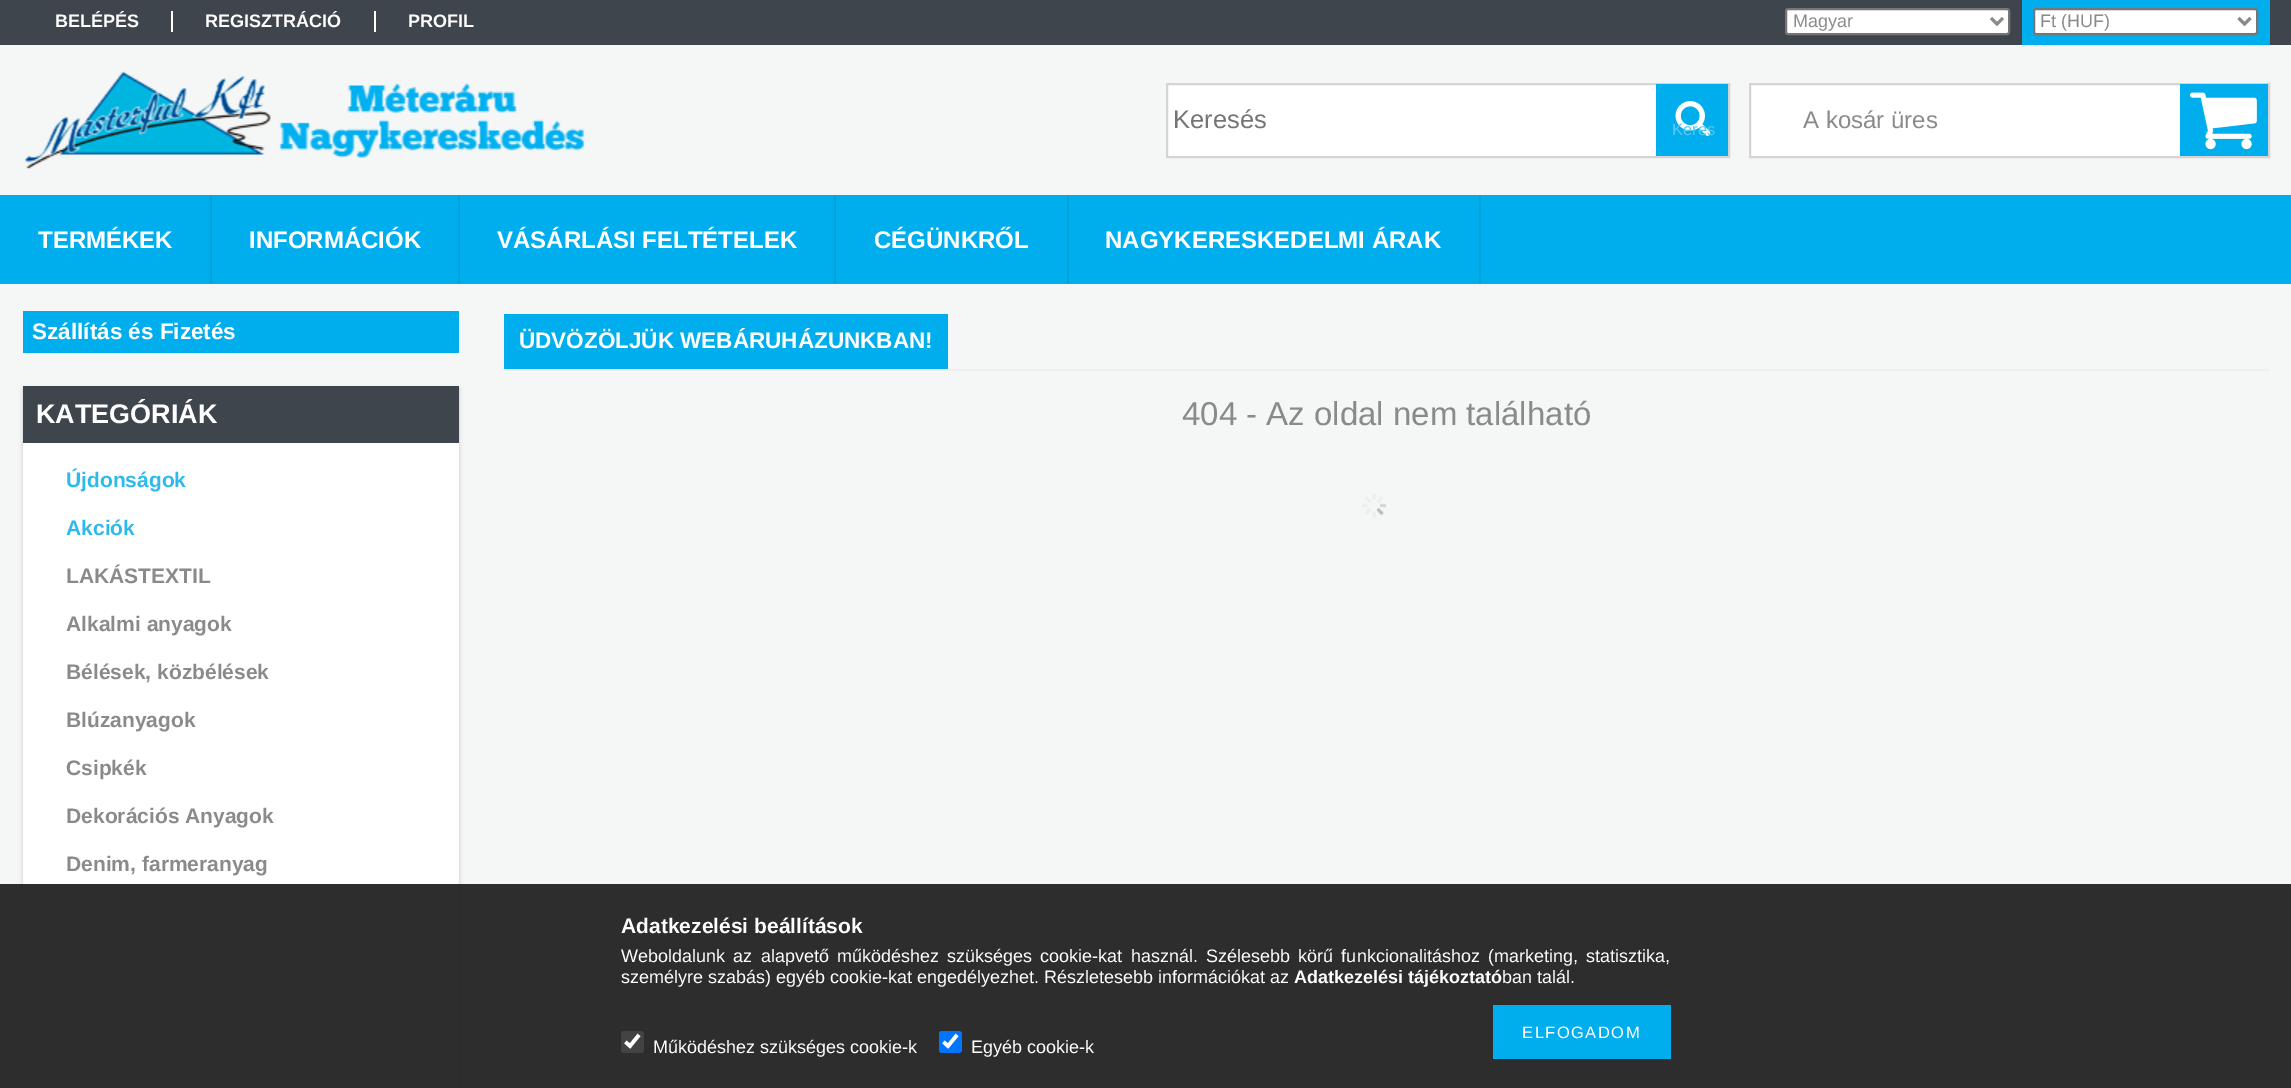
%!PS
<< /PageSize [2291 1088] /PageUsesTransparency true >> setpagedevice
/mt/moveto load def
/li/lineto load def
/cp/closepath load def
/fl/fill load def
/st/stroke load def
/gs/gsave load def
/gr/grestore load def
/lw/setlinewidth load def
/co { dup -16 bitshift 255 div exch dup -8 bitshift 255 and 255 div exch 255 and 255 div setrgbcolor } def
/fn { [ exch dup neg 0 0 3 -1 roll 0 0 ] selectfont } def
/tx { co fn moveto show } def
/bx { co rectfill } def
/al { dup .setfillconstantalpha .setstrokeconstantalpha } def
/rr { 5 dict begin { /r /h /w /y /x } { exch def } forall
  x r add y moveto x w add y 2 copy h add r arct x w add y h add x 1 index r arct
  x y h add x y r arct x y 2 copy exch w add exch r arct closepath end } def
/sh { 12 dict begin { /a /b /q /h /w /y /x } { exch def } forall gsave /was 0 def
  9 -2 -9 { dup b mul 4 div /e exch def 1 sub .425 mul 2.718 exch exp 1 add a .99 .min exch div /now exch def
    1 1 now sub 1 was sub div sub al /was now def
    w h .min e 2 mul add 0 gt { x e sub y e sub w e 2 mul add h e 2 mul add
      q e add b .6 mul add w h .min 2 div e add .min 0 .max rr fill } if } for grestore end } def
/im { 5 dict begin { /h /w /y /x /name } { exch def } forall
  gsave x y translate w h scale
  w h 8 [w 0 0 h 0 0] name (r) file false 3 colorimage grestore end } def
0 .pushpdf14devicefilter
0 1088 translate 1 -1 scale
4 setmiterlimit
0 0 2291 1088 16#F5F6F6 bx
0 0 2291 45 16#3E454C bx
171 11 2 21 16#FFFFFF bx
374 11 2 21 16#FFFFFF bx
1786 9 223 25 2 rr gs fl gr
16#767676 co
2 lw
st
16#8B8A8A co
3 lw
1991 18 mt 1997 24 li 2003 18 li st
2022 0 248 45 16#00AEED bx
16#FFFFFF co
2034 9 223 25 2 rr gs fl gr
16#767676 co
2 lw
st
16#8B8A8A co
3 lw
2238.5 18 mt 2244.5 24 li 2250.5 18 li st
(media/1.raw) 24 71 561 98 im
1168 85 488 71 16#FFFFFF bx
16#D4D4D4 co
2 lw
1167 84 562 73 rectstroke
1656 84 72 72 16#00AEED bx
(media/2.raw) 1675 101 36 35 im
1751 85 429 71 16#FFFFFF bx
16#D4D4D4 co
1750 84 519 73 rectstroke
2180 84 88 72 16#00AEED bx
(media/3.raw) 2190 92 67 58 im
0 195 2291 89 16#00AEED bx
gs
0 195 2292 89 rectclip
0 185 mt 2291 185 li 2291 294 li 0 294 li cp 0 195 mt 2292 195 li 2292 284 li 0 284 li cp eoclip newpath
16#000000 co
6 195 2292 89 0 3 .2 sh
gr
0.07 al
210 195 2 89 16#000000 bx
458 195 2 89 16#000000 bx
834 195 2 89 16#000000 bx
1067 195 2 89 16#000000 bx
1479 195 2 89 16#000000 bx
1 al
23 311 436 42 16#00AEED bx
16#000000 co
23 389 436 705 0 2 .2 sh
23 386 436 57 16#3E454C bx
23 443 436 645 16#FFFFFF bx
504 369 1766 2 16#EFEFEF bx
504 314 444 55 16#00AEED bx
(media/4.raw) 1362 493 24 25 im
0.95 al
0 884 2291 204 16#222222 bx
1 al
1493 1005 178 54 16#00AEED bx
16#434343 co
621 1031 23 22 3 rr fl
16#FFFFFF co
3.6 lw
625.5 1042 mt 630 1046 li 639 1035 li st
16#0075FF co
939 1031 23 22 3 rr fl
16#FFFFFF co
943.5 1042 mt 948 1046 li 957 1035 li st
(BELÉPÉS) 55 27 /LiberationSans-Bold 18 16#FFFFFF tx
(REGISZTRÁCIÓ) 205 27 /LiberationSans-Bold 18 16#FFFFFF tx
(PROFIL) 408 27 /LiberationSans-Bold 18 16#FFFFFF tx
(Magyar) 1793 27 /LiberationSans-Regular 18 16#8B8A8A tx
(Ft \(HUF\)) 2040 27 /LiberationSans-Regular 18 16#8B8A8A tx
(Keresés) 1173 128 /LiberationSans-Regular 25.5 16#757575 tx
(Keres) 1672 135 /LiberationSans-Regular 16.5 16#55C9F3 tx
(A kosár üres) 1803 128 /LiberationSans-Regular 24 16#8B8A8A tx
(TERMÉKEK) 38 248 /LiberationSans-Bold 24 16#FFFFFF tx
(INFORMÁCIÓK) 249 248 /LiberationSans-Bold 24 16#FFFFFF tx
(VÁSÁRLÁSI FELTÉTELEK) 497 248 /LiberationSans-Bold 24 16#FFFFFF tx
(CÉGÜNKRŐL) 874 248 /LiberationSans-Bold 24 16#FFFFFF tx
(NAGYKERESKEDELMI ÁRAK) 1105 248 /LiberationSans-Bold 24 16#FFFFFF tx
(Szállítás és Fizetés) 32 339 /LiberationSans-Bold 22.5 16#FFFFFF tx
(KATEGÓRIÁK) 36 423 /LiberationSans-Bold 27 16#FFFFFF tx
(Újdonságok) 66 487 /LiberationSans-Bold 21 16#2DB9EC tx
(Akciók) 66 535 /LiberationSans-Bold 21 16#2DB9EC tx
(LAKÁSTEXTIL) 66 583 /LiberationSans-Bold 21 16#8B8A8A tx
(Alkalmi anyagok) 66 631 /LiberationSans-Bold 21 16#8B8A8A tx
(Bélések, közbélések) 66 679 /LiberationSans-Bold 21 16#8B8A8A tx
(Blúzanyagok) 66 727 /LiberationSans-Bold 21 16#8B8A8A tx
(Csipkék) 66 775 /LiberationSans-Bold 21 16#8B8A8A tx
(Dekorációs Anyagok) 66 823 /LiberationSans-Bold 21 16#8B8A8A tx
(Denim, farmeranyag) 66 871 /LiberationSans-Bold 21 16#8B8A8A tx
(ÜDVÖZÖLJÜK WEBÁRUHÁZUNKBAN!) 519 348 /LiberationSans-Bold 22.5 16#FFFFFF tx
(404 - Az oldal nem található) 1182 425 /LiberationSans-Regular 33 16#8B8A8A tx
(Adatkezelési beállítások) 621 933 /LiberationSans-Bold 21 16#FFFFFF tx
/LiberationSans-Regular 18 fn
621 962 mt 3.25 0 32 (Weboldalunk az alapvető működéshez szükséges cookie-kat használ. Szélesebb körű funkcionalitáshoz \(marketing, statisztika,) widthshow
(személyre szabás\) egyéb cookie-kat engedélyezhet. Részletesebb információkat az) 621 983 /LiberationSans-Regular 18 16#FFFFFF tx
(Adatkezelési tájékoztató) 1294 983 /LiberationSans-Bold 18 16#FFFFFF tx
(ban talál.) 1502 983 /LiberationSans-Regular 18 16#FFFFFF tx
/LiberationSans-Regular 16.5 fn
1522 1038 mt 1.5 0 (ELFOGADOM) ashow
(Működéshez szükséges cookie-k) 653 1053 /LiberationSans-Regular 18 16#FFFFFF tx
(Egyéb cookie-k) 971 1053 /LiberationSans-Regular 18 16#FFFFFF tx
.poppdf14devicefilter showpage
